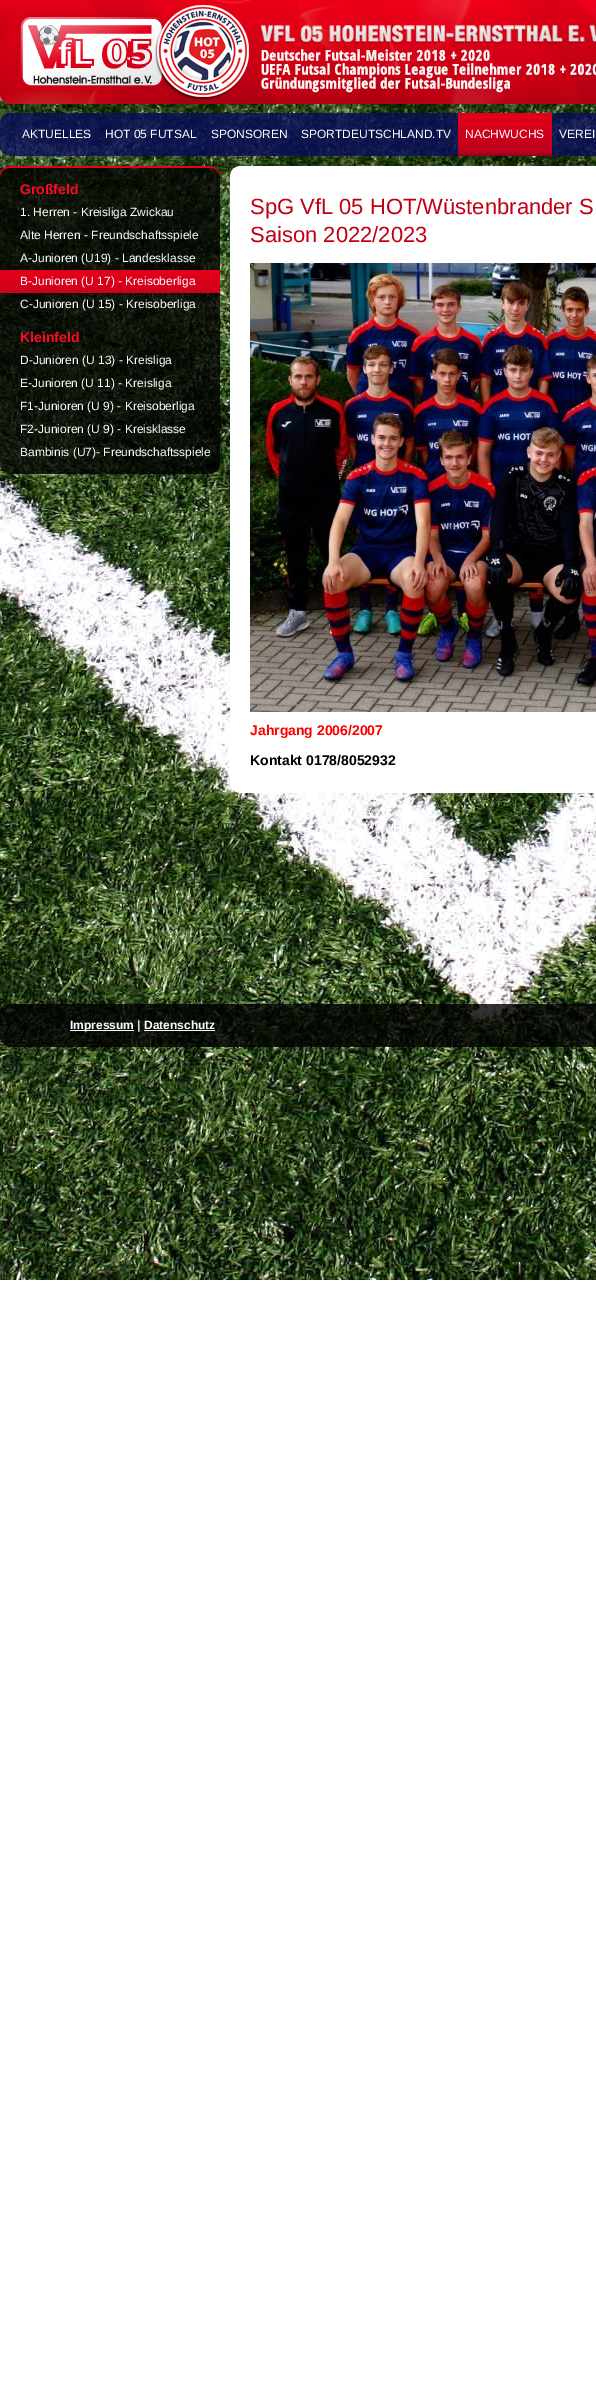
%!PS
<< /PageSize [596 2404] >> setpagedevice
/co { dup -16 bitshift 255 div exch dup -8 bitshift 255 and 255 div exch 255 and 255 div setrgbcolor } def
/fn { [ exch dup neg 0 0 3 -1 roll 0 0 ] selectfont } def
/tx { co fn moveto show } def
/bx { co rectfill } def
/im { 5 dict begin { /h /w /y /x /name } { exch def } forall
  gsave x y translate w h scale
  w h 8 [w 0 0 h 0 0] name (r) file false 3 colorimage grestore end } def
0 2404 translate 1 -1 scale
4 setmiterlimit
0 0 596 2404 16#FFFFFF bx
(media/1.raw) 0 94 596 1186 im
(media/2.raw) 0 0 596 104 im
(media/3.raw) 0 113 596 43 im
(media/4.raw) 458 113 94 43 im
(media/5.raw) 0 166 220 12 im
(media/6.raw) 0 178 220 296 im
(media/7.raw) 0 270 220 23 im
(media/8.raw) 230 166 366 12 im
(media/9.raw) 230 178 366 615 im
(media/10.raw) 250 263 346 449 im
(media/11.raw) 0 1004 596 43 im
70 1030 64 1 16#FFFFFF bx
144 1030 71 1 16#FFFFFF bx
(AKTUELLES) 22 138 /LiberationSans-Regular 12 16#FFFFFF tx
(HOT 05 FUTSAL) 105 138 /LiberationSans-Regular 12 16#FFFFFF tx
(SPONSOREN) 211 138 /LiberationSans-Regular 12 16#FFFFFF tx
(SPORTDEUTSCHLAND.TV) 301 138 /LiberationSans-Regular 12 16#FFFFFF tx
(NACHWUCHS) 465 138 /LiberationSans-Regular 12 16#FFFFFF tx
(VEREI) 559 138 /LiberationSans-Regular 12 16#FFFFFF tx
(Großfeld) 20 194 /LiberationSans-Bold 14 16#FF0A22 tx
(1. Herren - Kreisliga Zwickau) 20 216 /LiberationSans-Regular 12 16#FFFFFF tx
(Alte Herren - Freundschaftsspiele) 20 239 /LiberationSans-Regular 12 16#FFFFFF tx
(A-Junioren \(U19\) - Landesklasse) 20 262 /LiberationSans-Regular 12 16#FFFFFF tx
(B-Junioren \(U 17\) - Kreisoberliga) 20 285 /LiberationSans-Regular 12 16#FFFFFF tx
(C-Junioren \(U 15\) - Kreisoberliga) 20 308 /LiberationSans-Regular 12 16#FFFFFF tx
(Kleinfeld) 20 342 /LiberationSans-Bold 14 16#FF0A22 tx
(D-Junioren \(U 13\) - Kreisliga) 20 364 /LiberationSans-Regular 12 16#FFFFFF tx
(E-Junioren \(U 11\) - Kreisliga) 20 387 /LiberationSans-Regular 12 16#FFFFFF tx
(F1-Junioren \(U 9\) - Kreisoberliga) 20 410 /LiberationSans-Regular 12 16#FFFFFF tx
(F2-Junioren \(U 9\) - Kreisklasse) 20 433 /LiberationSans-Regular 12 16#FFFFFF tx
(Bambinis \(U7\)- Freundschaftsspiele) 20 456 /LiberationSans-Regular 12 16#FFFFFF tx
(SpG VfL 05 HOT/Wüstenbrander S) 250 214 /LiberationSans-Regular 22 16#BF0013 tx
(Saison 2022/2023) 250 242 /LiberationSans-Regular 22 16#BF0013 tx
(Jahrgang 2006/2007) 250 735 /LiberationSans-Bold 14 16#FF0000 tx
(Kontakt 0178/8052932) 250 765 /LiberationSans-Bold 14 16#000000 tx
(Impressum) 70 1029 /LiberationSans-Bold 12 16#FFFFFF tx
(|) 137 1029 /LiberationSans-Bold 12 16#DEDEDE tx
(Datenschutz) 144 1029 /LiberationSans-Bold 12 16#FFFFFF tx
showpage
